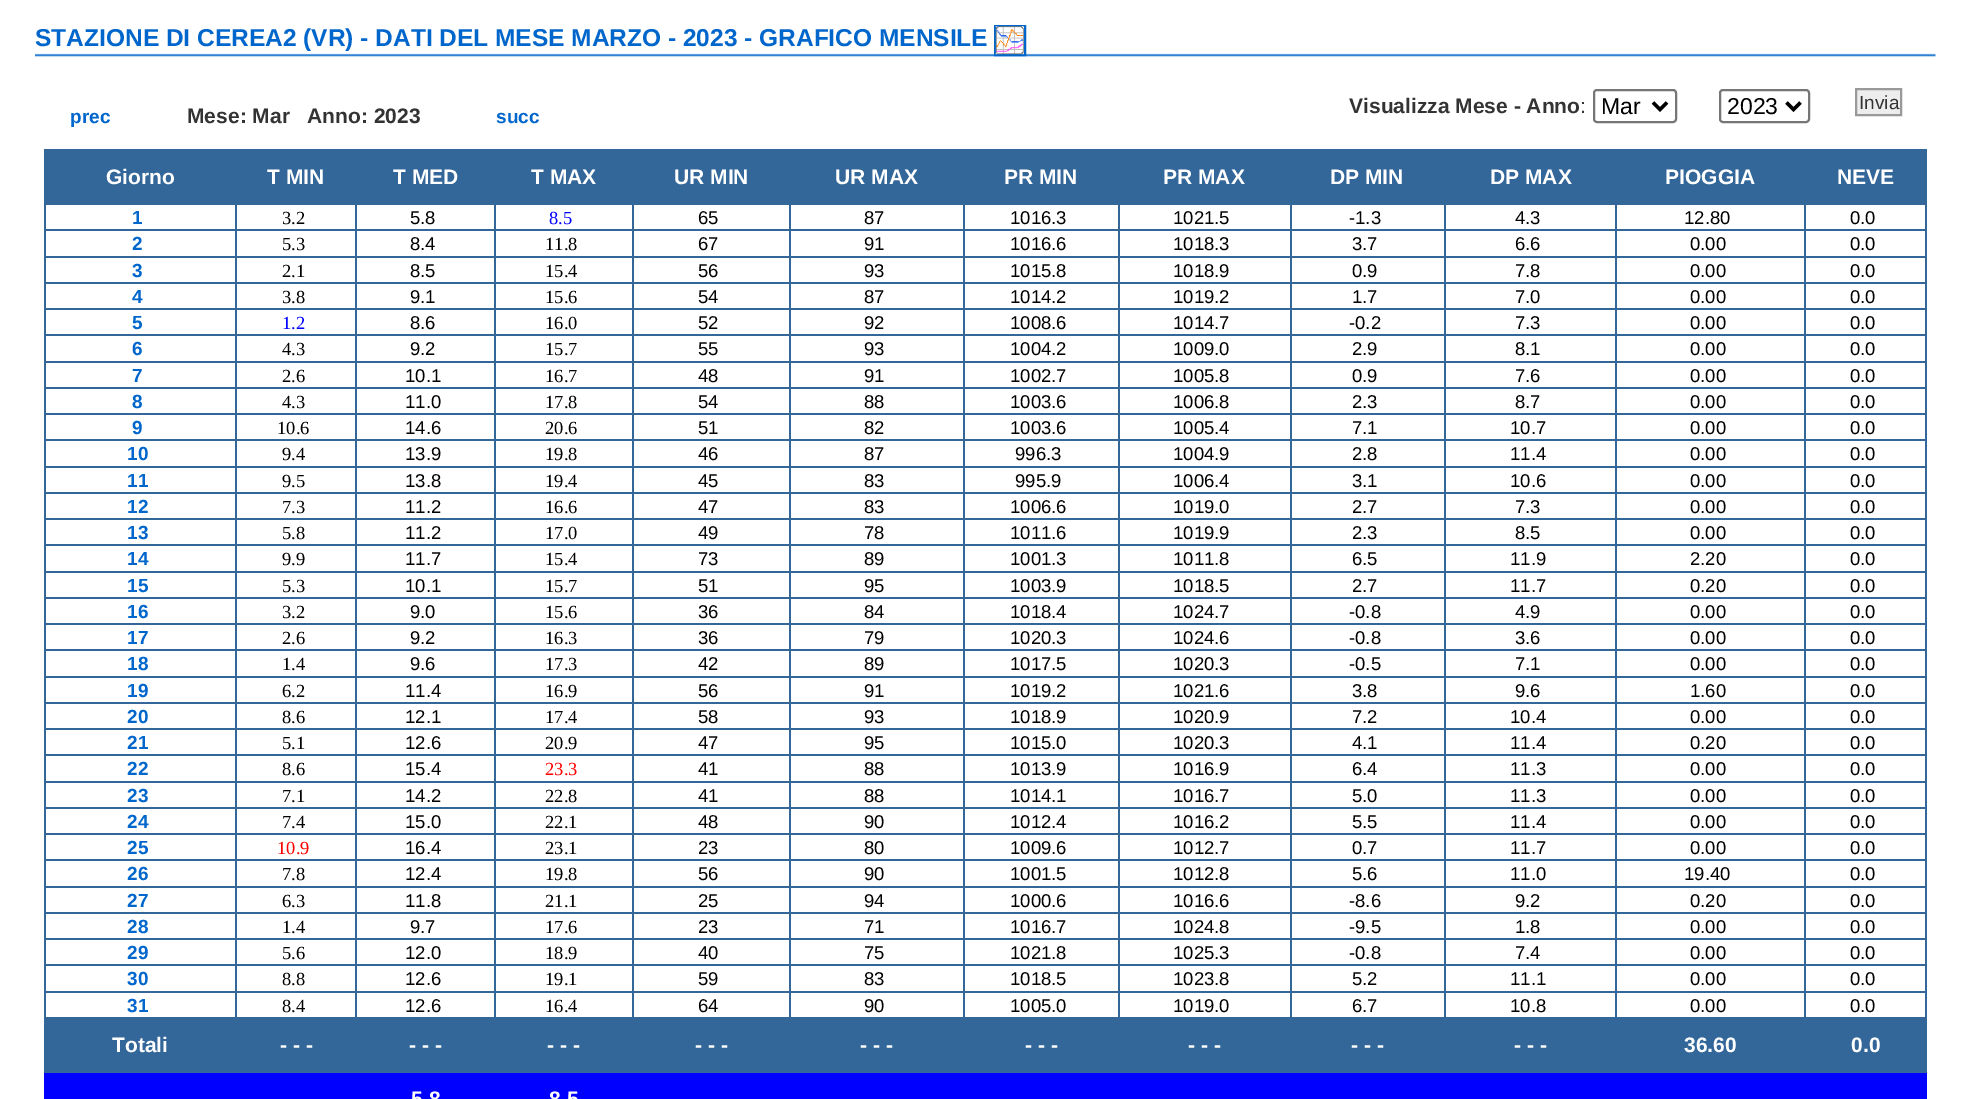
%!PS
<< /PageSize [1970 1099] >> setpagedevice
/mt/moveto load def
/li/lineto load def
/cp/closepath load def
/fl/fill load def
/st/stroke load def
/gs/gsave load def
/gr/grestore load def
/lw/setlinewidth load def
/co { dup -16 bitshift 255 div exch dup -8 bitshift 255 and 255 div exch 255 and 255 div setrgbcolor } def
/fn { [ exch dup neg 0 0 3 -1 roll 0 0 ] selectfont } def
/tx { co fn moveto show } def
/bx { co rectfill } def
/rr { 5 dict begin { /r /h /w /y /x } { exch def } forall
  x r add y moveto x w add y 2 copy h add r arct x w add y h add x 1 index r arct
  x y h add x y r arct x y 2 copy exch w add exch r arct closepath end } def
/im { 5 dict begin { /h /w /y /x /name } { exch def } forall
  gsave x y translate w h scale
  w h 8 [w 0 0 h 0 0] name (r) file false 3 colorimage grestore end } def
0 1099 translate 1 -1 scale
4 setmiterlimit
0 0 1970 1099 16#FFFFFF bx
(media/1.raw) 35 53 1901 4 im
16#0066CC co
2 lw
995 26 30 29 rectstroke
(media/2.raw) 995 26 29 29 im
16#767676 co
1594 90 82 32 3 rr st
16#000000 co
3.5 lw
1653 102.5 mt 1660 109.5 li 1667 102.5 li st
16#767676 co
2 lw
1720 90 89 32 3 rr st
16#000000 co
3.5 lw
1786.5 102.5 mt 1793.5 109.5 li 1800.5 102.5 li st
16#EDEDED co
1856 89 mt 1901 89 li 1901 115 li 1856 115 li cp gs fl gr
16#999999 co
2 lw
st
46 151 190 52 16#336699 bx
44 149 1883 2 16#336699 bx
236 151 1691 54 16#336699 bx
1804 229 123 2 16#336699 bx
1804 256 123 2 16#336699 bx
1804 282 123 2 16#336699 bx
1804 308 123 2 16#336699 bx
1804 334 123 2 16#336699 bx
1804 361 123 2 16#336699 bx
1804 387 123 2 16#336699 bx
1804 413 123 2 16#336699 bx
1804 439 123 2 16#336699 bx
1804 466 123 2 16#336699 bx
1804 492 123 2 16#336699 bx
1804 518 123 2 16#336699 bx
1804 544 123 2 16#336699 bx
1804 571 123 2 16#336699 bx
1804 597 123 2 16#336699 bx
1804 623 123 2 16#336699 bx
1804 649 123 2 16#336699 bx
1804 676 123 2 16#336699 bx
1804 702 123 2 16#336699 bx
1804 728 123 2 16#336699 bx
1804 754 123 2 16#336699 bx
1804 781 123 2 16#336699 bx
1804 807 123 2 16#336699 bx
1804 833 123 2 16#336699 bx
1804 859 123 2 16#336699 bx
1804 886 123 2 16#336699 bx
1804 912 123 2 16#336699 bx
1804 938 123 2 16#336699 bx
1804 964 123 2 16#336699 bx
1804 991 123 2 16#336699 bx
44 1017 1883 2 16#336699 bx
1804 991 2 28 16#336699 bx
1615 991 191 2 16#336699 bx
1804 964 2 28 16#336699 bx
1615 964 191 2 16#336699 bx
1804 938 2 28 16#336699 bx
1615 938 191 2 16#336699 bx
1804 912 2 28 16#336699 bx
1615 912 191 2 16#336699 bx
1804 886 2 28 16#336699 bx
1615 886 191 2 16#336699 bx
1804 859 2 28 16#336699 bx
1615 859 191 2 16#336699 bx
1804 833 2 28 16#336699 bx
1615 833 191 2 16#336699 bx
1804 807 2 28 16#336699 bx
1615 807 191 2 16#336699 bx
1804 781 2 28 16#336699 bx
1615 781 191 2 16#336699 bx
1804 754 2 28 16#336699 bx
1615 754 191 2 16#336699 bx
1804 728 2 28 16#336699 bx
1615 728 191 2 16#336699 bx
1804 702 2 28 16#336699 bx
1615 702 191 2 16#336699 bx
1804 676 2 28 16#336699 bx
1615 676 191 2 16#336699 bx
1804 649 2 28 16#336699 bx
1615 649 191 2 16#336699 bx
1804 623 2 28 16#336699 bx
1615 623 191 2 16#336699 bx
1804 597 2 28 16#336699 bx
1615 597 191 2 16#336699 bx
1804 571 2 28 16#336699 bx
1615 571 191 2 16#336699 bx
1804 544 2 28 16#336699 bx
1615 544 191 2 16#336699 bx
1804 518 2 28 16#336699 bx
1615 518 191 2 16#336699 bx
1804 492 2 28 16#336699 bx
1615 492 191 2 16#336699 bx
1804 466 2 28 16#336699 bx
1615 466 191 2 16#336699 bx
1804 439 2 28 16#336699 bx
1615 439 191 2 16#336699 bx
1804 413 2 28 16#336699 bx
1615 413 191 2 16#336699 bx
1804 387 2 28 16#336699 bx
1615 387 191 2 16#336699 bx
1804 361 2 28 16#336699 bx
1615 361 191 2 16#336699 bx
1804 334 2 28 16#336699 bx
1615 334 191 2 16#336699 bx
1804 308 2 28 16#336699 bx
1615 308 191 2 16#336699 bx
1804 282 2 28 16#336699 bx
1615 282 191 2 16#336699 bx
1804 256 2 28 16#336699 bx
1615 256 191 2 16#336699 bx
1804 229 2 28 16#336699 bx
1615 229 191 2 16#336699 bx
1615 991 2 28 16#336699 bx
1444 991 173 2 16#336699 bx
1615 964 2 28 16#336699 bx
1444 964 173 2 16#336699 bx
1615 938 2 28 16#336699 bx
1444 938 173 2 16#336699 bx
1615 912 2 28 16#336699 bx
1444 912 173 2 16#336699 bx
1615 886 2 28 16#336699 bx
1444 886 173 2 16#336699 bx
1615 859 2 28 16#336699 bx
1444 859 173 2 16#336699 bx
1615 833 2 28 16#336699 bx
1444 833 173 2 16#336699 bx
1615 807 2 28 16#336699 bx
1444 807 173 2 16#336699 bx
1615 781 2 28 16#336699 bx
1444 781 173 2 16#336699 bx
1615 754 2 28 16#336699 bx
1444 754 173 2 16#336699 bx
1615 728 2 28 16#336699 bx
1444 728 173 2 16#336699 bx
1615 702 2 28 16#336699 bx
1444 702 173 2 16#336699 bx
1615 676 2 28 16#336699 bx
1444 676 173 2 16#336699 bx
1615 649 2 28 16#336699 bx
1444 649 173 2 16#336699 bx
1615 623 2 28 16#336699 bx
1444 623 173 2 16#336699 bx
1615 597 2 28 16#336699 bx
1444 597 173 2 16#336699 bx
1615 571 2 28 16#336699 bx
1444 571 173 2 16#336699 bx
1615 544 2 28 16#336699 bx
1444 544 173 2 16#336699 bx
1615 518 2 28 16#336699 bx
1444 518 173 2 16#336699 bx
1615 492 2 28 16#336699 bx
1444 492 173 2 16#336699 bx
1615 466 2 28 16#336699 bx
1444 466 173 2 16#336699 bx
1615 439 2 28 16#336699 bx
1444 439 173 2 16#336699 bx
1615 413 2 28 16#336699 bx
1444 413 173 2 16#336699 bx
1615 387 2 28 16#336699 bx
1444 387 173 2 16#336699 bx
1615 361 2 28 16#336699 bx
1444 361 173 2 16#336699 bx
1615 334 2 28 16#336699 bx
1444 334 173 2 16#336699 bx
1615 308 2 28 16#336699 bx
1444 308 173 2 16#336699 bx
1615 282 2 28 16#336699 bx
1444 282 173 2 16#336699 bx
1615 256 2 28 16#336699 bx
1444 256 173 2 16#336699 bx
1615 229 2 28 16#336699 bx
1444 229 173 2 16#336699 bx
1444 991 2 28 16#336699 bx
1290 991 156 2 16#336699 bx
1444 964 2 28 16#336699 bx
1290 964 156 2 16#336699 bx
1444 938 2 28 16#336699 bx
1290 938 156 2 16#336699 bx
1444 912 2 28 16#336699 bx
1290 912 156 2 16#336699 bx
1444 886 2 28 16#336699 bx
1290 886 156 2 16#336699 bx
1444 859 2 28 16#336699 bx
1290 859 156 2 16#336699 bx
1444 833 2 28 16#336699 bx
1290 833 156 2 16#336699 bx
1444 807 2 28 16#336699 bx
1290 807 156 2 16#336699 bx
1444 781 2 28 16#336699 bx
1290 781 156 2 16#336699 bx
1444 754 2 28 16#336699 bx
1290 754 156 2 16#336699 bx
1444 728 2 28 16#336699 bx
1290 728 156 2 16#336699 bx
1444 702 2 28 16#336699 bx
1290 702 156 2 16#336699 bx
1444 676 2 28 16#336699 bx
1290 676 156 2 16#336699 bx
1444 649 2 28 16#336699 bx
1290 649 156 2 16#336699 bx
1444 623 2 28 16#336699 bx
1290 623 156 2 16#336699 bx
1444 597 2 28 16#336699 bx
1290 597 156 2 16#336699 bx
1444 571 2 28 16#336699 bx
1290 571 156 2 16#336699 bx
1444 544 2 28 16#336699 bx
1290 544 156 2 16#336699 bx
1444 518 2 28 16#336699 bx
1290 518 156 2 16#336699 bx
1444 492 2 28 16#336699 bx
1290 492 156 2 16#336699 bx
1444 466 2 28 16#336699 bx
1290 466 156 2 16#336699 bx
1444 439 2 28 16#336699 bx
1290 439 156 2 16#336699 bx
1444 413 2 28 16#336699 bx
1290 413 156 2 16#336699 bx
1444 387 2 28 16#336699 bx
1290 387 156 2 16#336699 bx
1444 361 2 28 16#336699 bx
1290 361 156 2 16#336699 bx
1444 334 2 28 16#336699 bx
1290 334 156 2 16#336699 bx
1444 308 2 28 16#336699 bx
1290 308 156 2 16#336699 bx
1444 282 2 28 16#336699 bx
1290 282 156 2 16#336699 bx
1444 256 2 28 16#336699 bx
1290 256 156 2 16#336699 bx
1444 229 2 28 16#336699 bx
1290 229 156 2 16#336699 bx
1290 991 2 28 16#336699 bx
1118 991 174 2 16#336699 bx
1290 964 2 28 16#336699 bx
1118 964 174 2 16#336699 bx
1290 938 2 28 16#336699 bx
1118 938 174 2 16#336699 bx
1290 912 2 28 16#336699 bx
1118 912 174 2 16#336699 bx
1290 886 2 28 16#336699 bx
1118 886 174 2 16#336699 bx
1290 859 2 28 16#336699 bx
1118 859 174 2 16#336699 bx
1290 833 2 28 16#336699 bx
1118 833 174 2 16#336699 bx
1290 807 2 28 16#336699 bx
1118 807 174 2 16#336699 bx
1290 781 2 28 16#336699 bx
1118 781 174 2 16#336699 bx
1290 754 2 28 16#336699 bx
1118 754 174 2 16#336699 bx
1290 728 2 28 16#336699 bx
1118 728 174 2 16#336699 bx
1290 702 2 28 16#336699 bx
1118 702 174 2 16#336699 bx
1290 676 2 28 16#336699 bx
1118 676 174 2 16#336699 bx
1290 649 2 28 16#336699 bx
1118 649 174 2 16#336699 bx
1290 623 2 28 16#336699 bx
1118 623 174 2 16#336699 bx
1290 597 2 28 16#336699 bx
1118 597 174 2 16#336699 bx
1290 571 2 28 16#336699 bx
1118 571 174 2 16#336699 bx
1290 544 2 28 16#336699 bx
1118 544 174 2 16#336699 bx
1290 518 2 28 16#336699 bx
1118 518 174 2 16#336699 bx
1290 492 2 28 16#336699 bx
1118 492 174 2 16#336699 bx
1290 466 2 28 16#336699 bx
1118 466 174 2 16#336699 bx
1290 439 2 28 16#336699 bx
1118 439 174 2 16#336699 bx
1290 413 2 28 16#336699 bx
1118 413 174 2 16#336699 bx
1290 387 2 28 16#336699 bx
1118 387 174 2 16#336699 bx
1290 361 2 28 16#336699 bx
1118 361 174 2 16#336699 bx
1290 334 2 28 16#336699 bx
1118 334 174 2 16#336699 bx
1290 308 2 28 16#336699 bx
1118 308 174 2 16#336699 bx
1290 282 2 28 16#336699 bx
1118 282 174 2 16#336699 bx
1290 256 2 28 16#336699 bx
1118 256 174 2 16#336699 bx
1290 229 2 28 16#336699 bx
1118 229 174 2 16#336699 bx
1118 991 2 28 16#336699 bx
963 991 157 2 16#336699 bx
1118 964 2 28 16#336699 bx
963 964 157 2 16#336699 bx
1118 938 2 28 16#336699 bx
963 938 157 2 16#336699 bx
1118 912 2 28 16#336699 bx
963 912 157 2 16#336699 bx
1118 886 2 28 16#336699 bx
963 886 157 2 16#336699 bx
1118 859 2 28 16#336699 bx
963 859 157 2 16#336699 bx
1118 833 2 28 16#336699 bx
963 833 157 2 16#336699 bx
1118 807 2 28 16#336699 bx
963 807 157 2 16#336699 bx
1118 781 2 28 16#336699 bx
963 781 157 2 16#336699 bx
1118 754 2 28 16#336699 bx
963 754 157 2 16#336699 bx
1118 728 2 28 16#336699 bx
963 728 157 2 16#336699 bx
1118 702 2 28 16#336699 bx
963 702 157 2 16#336699 bx
1118 676 2 28 16#336699 bx
963 676 157 2 16#336699 bx
1118 649 2 28 16#336699 bx
963 649 157 2 16#336699 bx
1118 623 2 28 16#336699 bx
963 623 157 2 16#336699 bx
1118 597 2 28 16#336699 bx
963 597 157 2 16#336699 bx
1118 571 2 28 16#336699 bx
963 571 157 2 16#336699 bx
1118 544 2 28 16#336699 bx
963 544 157 2 16#336699 bx
1118 518 2 28 16#336699 bx
963 518 157 2 16#336699 bx
1118 492 2 28 16#336699 bx
963 492 157 2 16#336699 bx
1118 466 2 28 16#336699 bx
963 466 157 2 16#336699 bx
1118 439 2 28 16#336699 bx
963 439 157 2 16#336699 bx
1118 413 2 28 16#336699 bx
963 413 157 2 16#336699 bx
1118 387 2 28 16#336699 bx
963 387 157 2 16#336699 bx
1118 361 2 28 16#336699 bx
963 361 157 2 16#336699 bx
1118 334 2 28 16#336699 bx
963 334 157 2 16#336699 bx
1118 308 2 28 16#336699 bx
963 308 157 2 16#336699 bx
1118 282 2 28 16#336699 bx
963 282 157 2 16#336699 bx
1118 256 2 28 16#336699 bx
963 256 157 2 16#336699 bx
1118 229 2 28 16#336699 bx
963 229 157 2 16#336699 bx
963 991 2 28 16#336699 bx
789 991 175 2 16#336699 bx
963 964 2 28 16#336699 bx
789 964 175 2 16#336699 bx
963 938 2 28 16#336699 bx
789 938 175 2 16#336699 bx
963 912 2 28 16#336699 bx
789 912 175 2 16#336699 bx
963 886 2 28 16#336699 bx
789 886 175 2 16#336699 bx
963 859 2 28 16#336699 bx
789 859 175 2 16#336699 bx
963 833 2 28 16#336699 bx
789 833 175 2 16#336699 bx
963 807 2 28 16#336699 bx
789 807 175 2 16#336699 bx
963 781 2 28 16#336699 bx
789 781 175 2 16#336699 bx
963 754 2 28 16#336699 bx
789 754 175 2 16#336699 bx
963 728 2 28 16#336699 bx
789 728 175 2 16#336699 bx
963 702 2 28 16#336699 bx
789 702 175 2 16#336699 bx
963 676 2 28 16#336699 bx
789 676 175 2 16#336699 bx
963 649 2 28 16#336699 bx
789 649 175 2 16#336699 bx
963 623 2 28 16#336699 bx
789 623 175 2 16#336699 bx
963 597 2 28 16#336699 bx
789 597 175 2 16#336699 bx
963 571 2 28 16#336699 bx
789 571 175 2 16#336699 bx
963 544 2 28 16#336699 bx
789 544 175 2 16#336699 bx
963 518 2 28 16#336699 bx
789 518 175 2 16#336699 bx
963 492 2 28 16#336699 bx
789 492 175 2 16#336699 bx
963 466 2 28 16#336699 bx
789 466 175 2 16#336699 bx
963 439 2 28 16#336699 bx
789 439 175 2 16#336699 bx
963 413 2 28 16#336699 bx
789 413 175 2 16#336699 bx
963 387 2 28 16#336699 bx
789 387 175 2 16#336699 bx
963 361 2 28 16#336699 bx
789 361 175 2 16#336699 bx
963 334 2 28 16#336699 bx
789 334 175 2 16#336699 bx
963 308 2 28 16#336699 bx
789 308 175 2 16#336699 bx
963 282 2 28 16#336699 bx
789 282 175 2 16#336699 bx
963 256 2 28 16#336699 bx
789 256 175 2 16#336699 bx
963 229 2 28 16#336699 bx
789 229 175 2 16#336699 bx
789 991 2 28 16#336699 bx
632 991 159 2 16#336699 bx
789 964 2 28 16#336699 bx
632 964 159 2 16#336699 bx
789 938 2 28 16#336699 bx
632 938 159 2 16#336699 bx
789 912 2 28 16#336699 bx
632 912 159 2 16#336699 bx
789 886 2 28 16#336699 bx
632 886 159 2 16#336699 bx
789 859 2 28 16#336699 bx
632 859 159 2 16#336699 bx
789 833 2 28 16#336699 bx
632 833 159 2 16#336699 bx
789 807 2 28 16#336699 bx
632 807 159 2 16#336699 bx
789 781 2 28 16#336699 bx
632 781 159 2 16#336699 bx
789 754 2 28 16#336699 bx
632 754 159 2 16#336699 bx
789 728 2 28 16#336699 bx
632 728 159 2 16#336699 bx
789 702 2 28 16#336699 bx
632 702 159 2 16#336699 bx
789 676 2 28 16#336699 bx
632 676 159 2 16#336699 bx
789 649 2 28 16#336699 bx
632 649 159 2 16#336699 bx
789 623 2 28 16#336699 bx
632 623 159 2 16#336699 bx
789 597 2 28 16#336699 bx
632 597 159 2 16#336699 bx
789 571 2 28 16#336699 bx
632 571 159 2 16#336699 bx
789 544 2 28 16#336699 bx
632 544 159 2 16#336699 bx
789 518 2 28 16#336699 bx
632 518 159 2 16#336699 bx
789 492 2 28 16#336699 bx
632 492 159 2 16#336699 bx
789 466 2 28 16#336699 bx
632 466 159 2 16#336699 bx
789 439 2 28 16#336699 bx
632 439 159 2 16#336699 bx
789 413 2 28 16#336699 bx
632 413 159 2 16#336699 bx
789 387 2 28 16#336699 bx
632 387 159 2 16#336699 bx
789 361 2 28 16#336699 bx
632 361 159 2 16#336699 bx
789 334 2 28 16#336699 bx
632 334 159 2 16#336699 bx
789 308 2 28 16#336699 bx
632 308 159 2 16#336699 bx
789 282 2 28 16#336699 bx
632 282 159 2 16#336699 bx
789 256 2 28 16#336699 bx
632 256 159 2 16#336699 bx
789 229 2 28 16#336699 bx
632 229 159 2 16#336699 bx
632 991 2 28 16#336699 bx
494 991 140 2 16#336699 bx
632 964 2 28 16#336699 bx
494 964 140 2 16#336699 bx
632 938 2 28 16#336699 bx
494 938 140 2 16#336699 bx
632 912 2 28 16#336699 bx
494 912 140 2 16#336699 bx
632 886 2 28 16#336699 bx
494 886 140 2 16#336699 bx
632 859 2 28 16#336699 bx
494 859 140 2 16#336699 bx
632 833 2 28 16#336699 bx
494 833 140 2 16#336699 bx
632 807 2 28 16#336699 bx
494 807 140 2 16#336699 bx
632 781 2 28 16#336699 bx
494 781 140 2 16#336699 bx
632 754 2 28 16#336699 bx
494 754 140 2 16#336699 bx
632 728 2 28 16#336699 bx
494 728 140 2 16#336699 bx
632 702 2 28 16#336699 bx
494 702 140 2 16#336699 bx
632 676 2 28 16#336699 bx
494 676 140 2 16#336699 bx
632 649 2 28 16#336699 bx
494 649 140 2 16#336699 bx
632 623 2 28 16#336699 bx
494 623 140 2 16#336699 bx
632 597 2 28 16#336699 bx
494 597 140 2 16#336699 bx
632 571 2 28 16#336699 bx
494 571 140 2 16#336699 bx
632 544 2 28 16#336699 bx
494 544 140 2 16#336699 bx
632 518 2 28 16#336699 bx
494 518 140 2 16#336699 bx
632 492 2 28 16#336699 bx
494 492 140 2 16#336699 bx
632 466 2 28 16#336699 bx
494 466 140 2 16#336699 bx
632 439 2 28 16#336699 bx
494 439 140 2 16#336699 bx
632 413 2 28 16#336699 bx
494 413 140 2 16#336699 bx
632 387 2 28 16#336699 bx
494 387 140 2 16#336699 bx
632 361 2 28 16#336699 bx
494 361 140 2 16#336699 bx
632 334 2 28 16#336699 bx
494 334 140 2 16#336699 bx
632 308 2 28 16#336699 bx
494 308 140 2 16#336699 bx
632 282 2 28 16#336699 bx
494 282 140 2 16#336699 bx
632 256 2 28 16#336699 bx
494 256 140 2 16#336699 bx
632 229 2 28 16#336699 bx
494 229 140 2 16#336699 bx
494 991 2 28 16#336699 bx
355 991 140 2 16#336699 bx
494 964 2 28 16#336699 bx
355 964 140 2 16#336699 bx
494 938 2 28 16#336699 bx
355 938 140 2 16#336699 bx
494 912 2 28 16#336699 bx
355 912 140 2 16#336699 bx
494 886 2 28 16#336699 bx
355 886 140 2 16#336699 bx
494 859 2 28 16#336699 bx
355 859 140 2 16#336699 bx
494 833 2 28 16#336699 bx
355 833 140 2 16#336699 bx
494 807 2 28 16#336699 bx
355 807 140 2 16#336699 bx
494 781 2 28 16#336699 bx
355 781 140 2 16#336699 bx
494 754 2 28 16#336699 bx
355 754 140 2 16#336699 bx
494 728 2 28 16#336699 bx
355 728 140 2 16#336699 bx
494 702 2 28 16#336699 bx
355 702 140 2 16#336699 bx
494 676 2 28 16#336699 bx
355 676 140 2 16#336699 bx
494 649 2 28 16#336699 bx
355 649 140 2 16#336699 bx
494 623 2 28 16#336699 bx
355 623 140 2 16#336699 bx
494 597 2 28 16#336699 bx
355 597 140 2 16#336699 bx
494 571 2 28 16#336699 bx
355 571 140 2 16#336699 bx
494 544 2 28 16#336699 bx
355 544 140 2 16#336699 bx
494 518 2 28 16#336699 bx
355 518 140 2 16#336699 bx
494 492 2 28 16#336699 bx
355 492 140 2 16#336699 bx
494 466 2 28 16#336699 bx
355 466 140 2 16#336699 bx
494 439 2 28 16#336699 bx
355 439 140 2 16#336699 bx
494 413 2 28 16#336699 bx
355 413 140 2 16#336699 bx
494 387 2 28 16#336699 bx
355 387 140 2 16#336699 bx
494 361 2 28 16#336699 bx
355 361 140 2 16#336699 bx
494 334 2 28 16#336699 bx
355 334 140 2 16#336699 bx
494 308 2 28 16#336699 bx
355 308 140 2 16#336699 bx
494 282 2 28 16#336699 bx
355 282 140 2 16#336699 bx
494 256 2 28 16#336699 bx
355 256 140 2 16#336699 bx
494 229 2 28 16#336699 bx
355 229 140 2 16#336699 bx
355 991 2 28 16#336699 bx
235 991 122 2 16#336699 bx
355 964 2 28 16#336699 bx
235 964 122 2 16#336699 bx
355 938 2 28 16#336699 bx
235 938 122 2 16#336699 bx
355 912 2 28 16#336699 bx
235 912 122 2 16#336699 bx
355 886 2 28 16#336699 bx
235 886 122 2 16#336699 bx
355 859 2 28 16#336699 bx
235 859 122 2 16#336699 bx
355 833 2 28 16#336699 bx
235 833 122 2 16#336699 bx
355 807 2 28 16#336699 bx
235 807 122 2 16#336699 bx
355 781 2 28 16#336699 bx
235 781 122 2 16#336699 bx
355 754 2 28 16#336699 bx
235 754 122 2 16#336699 bx
355 728 2 28 16#336699 bx
235 728 122 2 16#336699 bx
355 702 2 28 16#336699 bx
235 702 122 2 16#336699 bx
355 676 2 28 16#336699 bx
235 676 122 2 16#336699 bx
355 649 2 28 16#336699 bx
235 649 122 2 16#336699 bx
355 623 2 28 16#336699 bx
235 623 122 2 16#336699 bx
355 597 2 28 16#336699 bx
235 597 122 2 16#336699 bx
355 571 2 28 16#336699 bx
235 571 122 2 16#336699 bx
355 544 2 28 16#336699 bx
235 544 122 2 16#336699 bx
355 518 2 28 16#336699 bx
235 518 122 2 16#336699 bx
355 492 2 28 16#336699 bx
235 492 122 2 16#336699 bx
355 466 2 28 16#336699 bx
235 466 122 2 16#336699 bx
355 439 2 28 16#336699 bx
235 439 122 2 16#336699 bx
355 413 2 28 16#336699 bx
235 413 122 2 16#336699 bx
355 387 2 28 16#336699 bx
235 387 122 2 16#336699 bx
355 361 2 28 16#336699 bx
235 361 122 2 16#336699 bx
355 334 2 28 16#336699 bx
235 334 122 2 16#336699 bx
355 308 2 28 16#336699 bx
235 308 122 2 16#336699 bx
355 282 2 28 16#336699 bx
235 282 122 2 16#336699 bx
355 256 2 28 16#336699 bx
235 256 122 2 16#336699 bx
355 229 2 28 16#336699 bx
235 229 122 2 16#336699 bx
235 991 2 28 16#336699 bx
44 991 192 2 16#336699 bx
235 964 2 28 16#336699 bx
44 964 192 2 16#336699 bx
235 938 2 28 16#336699 bx
44 938 192 2 16#336699 bx
235 912 2 28 16#336699 bx
44 912 192 2 16#336699 bx
235 886 2 28 16#336699 bx
44 886 192 2 16#336699 bx
235 859 2 28 16#336699 bx
44 859 192 2 16#336699 bx
235 833 2 28 16#336699 bx
44 833 192 2 16#336699 bx
235 807 2 28 16#336699 bx
44 807 192 2 16#336699 bx
235 781 2 28 16#336699 bx
44 781 192 2 16#336699 bx
235 754 2 28 16#336699 bx
44 754 192 2 16#336699 bx
235 728 2 28 16#336699 bx
44 728 192 2 16#336699 bx
235 702 2 28 16#336699 bx
44 702 192 2 16#336699 bx
235 676 2 28 16#336699 bx
44 676 192 2 16#336699 bx
235 649 2 28 16#336699 bx
44 649 192 2 16#336699 bx
235 623 2 28 16#336699 bx
44 623 192 2 16#336699 bx
235 597 2 28 16#336699 bx
44 597 192 2 16#336699 bx
235 571 2 28 16#336699 bx
44 571 192 2 16#336699 bx
235 544 2 28 16#336699 bx
44 544 192 2 16#336699 bx
235 518 2 28 16#336699 bx
44 518 192 2 16#336699 bx
235 492 2 28 16#336699 bx
44 492 192 2 16#336699 bx
235 466 2 28 16#336699 bx
44 466 192 2 16#336699 bx
235 439 2 28 16#336699 bx
44 439 192 2 16#336699 bx
235 413 2 28 16#336699 bx
44 413 192 2 16#336699 bx
235 387 2 28 16#336699 bx
44 387 192 2 16#336699 bx
235 361 2 28 16#336699 bx
44 361 192 2 16#336699 bx
235 334 2 28 16#336699 bx
44 334 192 2 16#336699 bx
235 308 2 28 16#336699 bx
44 308 192 2 16#336699 bx
235 282 2 28 16#336699 bx
44 282 192 2 16#336699 bx
235 256 2 28 16#336699 bx
44 256 192 2 16#336699 bx
235 229 2 28 16#336699 bx
44 229 192 2 16#336699 bx
235 203 2 28 16#336699 bx
44 203 192 2 16#336699 bx
1925 1017 2 56 16#336699 bx
44 1071 2 28 16#0000FF bx
44 1071 1883 2 16#336699 bx
44 1017 2 56 16#336699 bx
44 991 2 28 16#336699 bx
44 964 2 28 16#336699 bx
44 938 2 28 16#336699 bx
44 912 2 28 16#336699 bx
44 886 2 28 16#336699 bx
44 859 2 28 16#336699 bx
44 833 2 28 16#336699 bx
44 807 2 28 16#336699 bx
44 781 2 28 16#336699 bx
44 754 2 28 16#336699 bx
44 728 2 28 16#336699 bx
44 702 2 28 16#336699 bx
44 676 2 28 16#336699 bx
44 649 2 28 16#336699 bx
44 623 2 28 16#336699 bx
44 597 2 28 16#336699 bx
44 571 2 28 16#336699 bx
44 544 2 28 16#336699 bx
44 518 2 28 16#336699 bx
44 492 2 28 16#336699 bx
44 466 2 28 16#336699 bx
44 439 2 28 16#336699 bx
44 413 2 28 16#336699 bx
44 387 2 28 16#336699 bx
44 361 2 28 16#336699 bx
44 334 2 28 16#336699 bx
44 308 2 28 16#336699 bx
44 282 2 28 16#336699 bx
44 256 2 28 16#336699 bx
44 229 2 28 16#336699 bx
44 203 2 28 16#336699 bx
44 149 2 56 16#336699 bx
355 203 2 28 16#336699 bx
494 203 2 28 16#336699 bx
632 203 2 28 16#336699 bx
789 203 2 28 16#336699 bx
963 203 2 28 16#336699 bx
1118 203 2 28 16#336699 bx
1290 203 2 28 16#336699 bx
1444 203 2 28 16#336699 bx
1615 203 2 28 16#336699 bx
1804 203 2 28 16#336699 bx
1925 991 2 28 16#336699 bx
1925 964 2 28 16#336699 bx
1925 938 2 28 16#336699 bx
1925 912 2 28 16#336699 bx
1925 886 2 28 16#336699 bx
1925 859 2 28 16#336699 bx
1925 833 2 28 16#336699 bx
1925 807 2 28 16#336699 bx
1925 781 2 28 16#336699 bx
1925 754 2 28 16#336699 bx
1925 728 2 28 16#336699 bx
1925 702 2 28 16#336699 bx
1925 676 2 28 16#336699 bx
1925 649 2 28 16#336699 bx
1925 623 2 28 16#336699 bx
1925 597 2 28 16#336699 bx
1925 571 2 28 16#336699 bx
1925 544 2 28 16#336699 bx
1925 518 2 28 16#336699 bx
1925 492 2 28 16#336699 bx
1925 466 2 28 16#336699 bx
1925 439 2 28 16#336699 bx
1925 413 2 28 16#336699 bx
1925 387 2 28 16#336699 bx
1925 361 2 28 16#336699 bx
1925 334 2 28 16#336699 bx
1925 308 2 28 16#336699 bx
1925 282 2 28 16#336699 bx
1925 256 2 28 16#336699 bx
1925 203 2 54 16#336699 bx
46 1019 1879 52 16#336699 bx
46 1073 1881 26 16#0000FF bx
(STAZIONE DI CEREA2 \(VR\) - DATI DEL MESE MARZO - 2023 - GRAFICO MENSILE) 35 46 /LiberationSans-Bold 24.5 16#0066CC tx
(Visualizza Mese - Anno) 1349 113 /LiberationSans-Bold 21 16#333333 tx
(:) 1580 113 /LiberationSans-Regular 21 16#333333 tx
(Mar) 1601 114 /LiberationSans-Regular 23 16#000000 tx
(2023) 1727 114 /LiberationSans-Regular 23 16#000000 tx
(Invia) 1859 109 /LiberationSans-Regular 19 16#333333 tx
(prec) 70 123 /LiberationSans-Bold 19 16#0066CC tx
(Mese: Mar   Anno: 2023) 187 123 /LiberationSans-Bold 21 16#333333 tx
(succ) 496 123 /LiberationSans-Bold 19 16#0066CC tx
(Giorno) 106 184 /LiberationSans-Bold 21 16#FFFFFF tx
(T MIN) 267 184 /LiberationSans-Bold 21 16#FFFFFF tx
(T MED) 393 184 /LiberationSans-Bold 21 16#FFFFFF tx
(T MAX) 531 184 /LiberationSans-Bold 21 16#FFFFFF tx
(UR MIN) 674 184 /LiberationSans-Bold 21 16#FFFFFF tx
(UR MAX) 835 184 /LiberationSans-Bold 21 16#FFFFFF tx
(PR MIN) 1004 184 /LiberationSans-Bold 21 16#FFFFFF tx
(PR MAX) 1163 184 /LiberationSans-Bold 21 16#FFFFFF tx
(DP MIN) 1330 184 /LiberationSans-Bold 21 16#FFFFFF tx
(DP MAX) 1490 184 /LiberationSans-Bold 21 16#FFFFFF tx
(PIOGGIA) 1665 184 /LiberationSans-Bold 21 16#FFFFFF tx
(NEVE) 1837 184 /LiberationSans-Bold 21 16#FFFFFF tx
(1) 132 224 /LiberationSans-Bold 19 16#0066CC tx
(3.2) 282 224 /LiberationSerif-Regular 18.5 16#000000 tx
(5.8) 410 224 /LiberationSans-Regular 18.5 16#000000 tx
(8.5) 549 224 /LiberationSerif-Regular 18.5 16#0000FF tx
(65) 698 224 /LiberationSans-Regular 18.5 16#000000 tx
(87) 864 224 /LiberationSans-Regular 18.5 16#000000 tx
(1016.3) 1010 224 /LiberationSans-Regular 18.5 16#000000 tx
(1021.5) 1173 224 /LiberationSans-Regular 18.5 16#000000 tx
(-1.3) 1349 224 /LiberationSans-Regular 18.5 16#000000 tx
(4.3) 1515 224 /LiberationSans-Regular 18.5 16#000000 tx
(12.80) 1684 224 /LiberationSans-Regular 18.5 16#000000 tx
(0.0) 1850 224 /LiberationSans-Regular 18.5 16#000000 tx
(2) 132 250 /LiberationSans-Bold 19 16#0066CC tx
(5.3) 282 250 /LiberationSerif-Regular 18.5 16#000000 tx
(8.4) 410 250 /LiberationSans-Regular 18.5 16#000000 tx
(11.8) 545 250 /LiberationSerif-Regular 18.5 16#000000 tx
(67) 698 250 /LiberationSans-Regular 18.5 16#000000 tx
(91) 864 250 /LiberationSans-Regular 18.5 16#000000 tx
(1016.6) 1010 250 /LiberationSans-Regular 18.5 16#000000 tx
(1018.3) 1173 250 /LiberationSans-Regular 18.5 16#000000 tx
(3.7) 1352 250 /LiberationSans-Regular 18.5 16#000000 tx
(6.6) 1515 250 /LiberationSans-Regular 18.5 16#000000 tx
(0.00) 1690 250 /LiberationSans-Regular 18.5 16#000000 tx
(0.0) 1850 250 /LiberationSans-Regular 18.5 16#000000 tx
(3) 132 277 /LiberationSans-Bold 19 16#0066CC tx
(2.1) 282 277 /LiberationSerif-Regular 18.5 16#000000 tx
(8.5) 410 277 /LiberationSans-Regular 18.5 16#000000 tx
(15.4) 545 277 /LiberationSerif-Regular 18.5 16#000000 tx
(56) 698 277 /LiberationSans-Regular 18.5 16#000000 tx
(93) 864 277 /LiberationSans-Regular 18.5 16#000000 tx
(1015.8) 1010 277 /LiberationSans-Regular 18.5 16#000000 tx
(1018.9) 1173 277 /LiberationSans-Regular 18.5 16#000000 tx
(0.9) 1352 277 /LiberationSans-Regular 18.5 16#000000 tx
(7.8) 1515 277 /LiberationSans-Regular 18.5 16#000000 tx
(0.00) 1690 277 /LiberationSans-Regular 18.5 16#000000 tx
(0.0) 1850 277 /LiberationSans-Regular 18.5 16#000000 tx
(4) 132 303 /LiberationSans-Bold 19 16#0066CC tx
(3.8) 282 303 /LiberationSerif-Regular 18.5 16#000000 tx
(9.1) 410 303 /LiberationSans-Regular 18.5 16#000000 tx
(15.6) 545 303 /LiberationSerif-Regular 18.5 16#000000 tx
(54) 698 303 /LiberationSans-Regular 18.5 16#000000 tx
(87) 864 303 /LiberationSans-Regular 18.5 16#000000 tx
(1014.2) 1010 303 /LiberationSans-Regular 18.5 16#000000 tx
(1019.2) 1173 303 /LiberationSans-Regular 18.5 16#000000 tx
(1.7) 1352 303 /LiberationSans-Regular 18.5 16#000000 tx
(7.0) 1515 303 /LiberationSans-Regular 18.5 16#000000 tx
(0.00) 1690 303 /LiberationSans-Regular 18.5 16#000000 tx
(0.0) 1850 303 /LiberationSans-Regular 18.5 16#000000 tx
(5) 132 329 /LiberationSans-Bold 19 16#0066CC tx
(1.2) 282 329 /LiberationSerif-Regular 18.5 16#0000FF tx
(8.6) 410 329 /LiberationSans-Regular 18.5 16#000000 tx
(16.0) 545 329 /LiberationSerif-Regular 18.5 16#000000 tx
(52) 698 329 /LiberationSans-Regular 18.5 16#000000 tx
(92) 864 329 /LiberationSans-Regular 18.5 16#000000 tx
(1008.6) 1010 329 /LiberationSans-Regular 18.5 16#000000 tx
(1014.7) 1173 329 /LiberationSans-Regular 18.5 16#000000 tx
(-0.2) 1349 329 /LiberationSans-Regular 18.5 16#000000 tx
(7.3) 1515 329 /LiberationSans-Regular 18.5 16#000000 tx
(0.00) 1690 329 /LiberationSans-Regular 18.5 16#000000 tx
(0.0) 1850 329 /LiberationSans-Regular 18.5 16#000000 tx
(6) 132 355 /LiberationSans-Bold 19 16#0066CC tx
(4.3) 282 355 /LiberationSerif-Regular 18.5 16#000000 tx
(9.2) 410 355 /LiberationSans-Regular 18.5 16#000000 tx
(15.7) 545 355 /LiberationSerif-Regular 18.5 16#000000 tx
(55) 698 355 /LiberationSans-Regular 18.5 16#000000 tx
(93) 864 355 /LiberationSans-Regular 18.5 16#000000 tx
(1004.2) 1010 355 /LiberationSans-Regular 18.5 16#000000 tx
(1009.0) 1173 355 /LiberationSans-Regular 18.5 16#000000 tx
(2.9) 1352 355 /LiberationSans-Regular 18.5 16#000000 tx
(8.1) 1515 355 /LiberationSans-Regular 18.5 16#000000 tx
(0.00) 1690 355 /LiberationSans-Regular 18.5 16#000000 tx
(0.0) 1850 355 /LiberationSans-Regular 18.5 16#000000 tx
(7) 132 382 /LiberationSans-Bold 19 16#0066CC tx
(2.6) 282 382 /LiberationSerif-Regular 18.5 16#000000 tx
(10.1) 405 382 /LiberationSans-Regular 18.5 16#000000 tx
(16.7) 545 382 /LiberationSerif-Regular 18.5 16#000000 tx
(48) 698 382 /LiberationSans-Regular 18.5 16#000000 tx
(91) 864 382 /LiberationSans-Regular 18.5 16#000000 tx
(1002.7) 1010 382 /LiberationSans-Regular 18.5 16#000000 tx
(1005.8) 1173 382 /LiberationSans-Regular 18.5 16#000000 tx
(0.9) 1352 382 /LiberationSans-Regular 18.5 16#000000 tx
(7.6) 1515 382 /LiberationSans-Regular 18.5 16#000000 tx
(0.00) 1690 382 /LiberationSans-Regular 18.5 16#000000 tx
(0.0) 1850 382 /LiberationSans-Regular 18.5 16#000000 tx
(8) 132 408 /LiberationSans-Bold 19 16#0066CC tx
(4.3) 282 408 /LiberationSerif-Regular 18.5 16#000000 tx
(11.0) 405 408 /LiberationSans-Regular 18.5 16#000000 tx
(17.8) 545 408 /LiberationSerif-Regular 18.5 16#000000 tx
(54) 698 408 /LiberationSans-Regular 18.5 16#000000 tx
(88) 864 408 /LiberationSans-Regular 18.5 16#000000 tx
(1003.6) 1010 408 /LiberationSans-Regular 18.5 16#000000 tx
(1006.8) 1173 408 /LiberationSans-Regular 18.5 16#000000 tx
(2.3) 1352 408 /LiberationSans-Regular 18.5 16#000000 tx
(8.7) 1515 408 /LiberationSans-Regular 18.5 16#000000 tx
(0.00) 1690 408 /LiberationSans-Regular 18.5 16#000000 tx
(0.0) 1850 408 /LiberationSans-Regular 18.5 16#000000 tx
(9) 132 434 /LiberationSans-Bold 19 16#0066CC tx
(10.6) 277 434 /LiberationSerif-Regular 18.5 16#000000 tx
(14.6) 405 434 /LiberationSans-Regular 18.5 16#000000 tx
(20.6) 545 434 /LiberationSerif-Regular 18.5 16#000000 tx
(51) 698 434 /LiberationSans-Regular 18.5 16#000000 tx
(82) 864 434 /LiberationSans-Regular 18.5 16#000000 tx
(1003.6) 1010 434 /LiberationSans-Regular 18.5 16#000000 tx
(1005.4) 1173 434 /LiberationSans-Regular 18.5 16#000000 tx
(7.1) 1352 434 /LiberationSans-Regular 18.5 16#000000 tx
(10.7) 1510 434 /LiberationSans-Regular 18.5 16#000000 tx
(0.00) 1690 434 /LiberationSans-Regular 18.5 16#000000 tx
(0.0) 1850 434 /LiberationSans-Regular 18.5 16#000000 tx
(10) 127 460 /LiberationSans-Bold 19 16#0066CC tx
(9.4) 282 460 /LiberationSerif-Regular 18.5 16#000000 tx
(13.9) 405 460 /LiberationSans-Regular 18.5 16#000000 tx
(19.8) 545 460 /LiberationSerif-Regular 18.5 16#000000 tx
(46) 698 460 /LiberationSans-Regular 18.5 16#000000 tx
(87) 864 460 /LiberationSans-Regular 18.5 16#000000 tx
(996.3) 1015 460 /LiberationSans-Regular 18.5 16#000000 tx
(1004.9) 1173 460 /LiberationSans-Regular 18.5 16#000000 tx
(2.8) 1352 460 /LiberationSans-Regular 18.5 16#000000 tx
(11.4) 1510 460 /LiberationSans-Regular 18.5 16#000000 tx
(0.00) 1690 460 /LiberationSans-Regular 18.5 16#000000 tx
(0.0) 1850 460 /LiberationSans-Regular 18.5 16#000000 tx
(11) 127 487 /LiberationSans-Bold 19 16#0066CC tx
(9.5) 282 487 /LiberationSerif-Regular 18.5 16#000000 tx
(13.8) 405 487 /LiberationSans-Regular 18.5 16#000000 tx
(19.4) 545 487 /LiberationSerif-Regular 18.5 16#000000 tx
(45) 698 487 /LiberationSans-Regular 18.5 16#000000 tx
(83) 864 487 /LiberationSans-Regular 18.5 16#000000 tx
(995.9) 1015 487 /LiberationSans-Regular 18.5 16#000000 tx
(1006.4) 1173 487 /LiberationSans-Regular 18.5 16#000000 tx
(3.1) 1352 487 /LiberationSans-Regular 18.5 16#000000 tx
(10.6) 1510 487 /LiberationSans-Regular 18.5 16#000000 tx
(0.00) 1690 487 /LiberationSans-Regular 18.5 16#000000 tx
(0.0) 1850 487 /LiberationSans-Regular 18.5 16#000000 tx
(12) 127 513 /LiberationSans-Bold 19 16#0066CC tx
(7.3) 282 513 /LiberationSerif-Regular 18.5 16#000000 tx
(11.2) 405 513 /LiberationSans-Regular 18.5 16#000000 tx
(16.6) 545 513 /LiberationSerif-Regular 18.5 16#000000 tx
(47) 698 513 /LiberationSans-Regular 18.5 16#000000 tx
(83) 864 513 /LiberationSans-Regular 18.5 16#000000 tx
(1006.6) 1010 513 /LiberationSans-Regular 18.5 16#000000 tx
(1019.0) 1173 513 /LiberationSans-Regular 18.5 16#000000 tx
(2.7) 1352 513 /LiberationSans-Regular 18.5 16#000000 tx
(7.3) 1515 513 /LiberationSans-Regular 18.5 16#000000 tx
(0.00) 1690 513 /LiberationSans-Regular 18.5 16#000000 tx
(0.0) 1850 513 /LiberationSans-Regular 18.5 16#000000 tx
(13) 127 539 /LiberationSans-Bold 19 16#0066CC tx
(5.8) 282 539 /LiberationSerif-Regular 18.5 16#000000 tx
(11.2) 405 539 /LiberationSans-Regular 18.5 16#000000 tx
(17.0) 545 539 /LiberationSerif-Regular 18.5 16#000000 tx
(49) 698 539 /LiberationSans-Regular 18.5 16#000000 tx
(78) 864 539 /LiberationSans-Regular 18.5 16#000000 tx
(1011.6) 1010 539 /LiberationSans-Regular 18.5 16#000000 tx
(1019.9) 1173 539 /LiberationSans-Regular 18.5 16#000000 tx
(2.3) 1352 539 /LiberationSans-Regular 18.5 16#000000 tx
(8.5) 1515 539 /LiberationSans-Regular 18.5 16#000000 tx
(0.00) 1690 539 /LiberationSans-Regular 18.5 16#000000 tx
(0.0) 1850 539 /LiberationSans-Regular 18.5 16#000000 tx
(14) 127 565 /LiberationSans-Bold 19 16#0066CC tx
(9.9) 282 565 /LiberationSerif-Regular 18.5 16#000000 tx
(11.7) 405 565 /LiberationSans-Regular 18.5 16#000000 tx
(15.4) 545 565 /LiberationSerif-Regular 18.5 16#000000 tx
(73) 698 565 /LiberationSans-Regular 18.5 16#000000 tx
(89) 864 565 /LiberationSans-Regular 18.5 16#000000 tx
(1001.3) 1010 565 /LiberationSans-Regular 18.5 16#000000 tx
(1011.8) 1173 565 /LiberationSans-Regular 18.5 16#000000 tx
(6.5) 1352 565 /LiberationSans-Regular 18.5 16#000000 tx
(11.9) 1510 565 /LiberationSans-Regular 18.5 16#000000 tx
(2.20) 1690 565 /LiberationSans-Regular 18.5 16#000000 tx
(0.0) 1850 565 /LiberationSans-Regular 18.5 16#000000 tx
(15) 127 592 /LiberationSans-Bold 19 16#0066CC tx
(5.3) 282 592 /LiberationSerif-Regular 18.5 16#000000 tx
(10.1) 405 592 /LiberationSans-Regular 18.5 16#000000 tx
(15.7) 545 592 /LiberationSerif-Regular 18.5 16#000000 tx
(51) 698 592 /LiberationSans-Regular 18.5 16#000000 tx
(95) 864 592 /LiberationSans-Regular 18.5 16#000000 tx
(1003.9) 1010 592 /LiberationSans-Regular 18.5 16#000000 tx
(1018.5) 1173 592 /LiberationSans-Regular 18.5 16#000000 tx
(2.7) 1352 592 /LiberationSans-Regular 18.5 16#000000 tx
(11.7) 1510 592 /LiberationSans-Regular 18.5 16#000000 tx
(0.20) 1690 592 /LiberationSans-Regular 18.5 16#000000 tx
(0.0) 1850 592 /LiberationSans-Regular 18.5 16#000000 tx
(16) 127 618 /LiberationSans-Bold 19 16#0066CC tx
(3.2) 282 618 /LiberationSerif-Regular 18.5 16#000000 tx
(9.0) 410 618 /LiberationSans-Regular 18.5 16#000000 tx
(15.6) 545 618 /LiberationSerif-Regular 18.5 16#000000 tx
(36) 698 618 /LiberationSans-Regular 18.5 16#000000 tx
(84) 864 618 /LiberationSans-Regular 18.5 16#000000 tx
(1018.4) 1010 618 /LiberationSans-Regular 18.5 16#000000 tx
(1024.7) 1173 618 /LiberationSans-Regular 18.5 16#000000 tx
(-0.8) 1349 618 /LiberationSans-Regular 18.5 16#000000 tx
(4.9) 1515 618 /LiberationSans-Regular 18.5 16#000000 tx
(0.00) 1690 618 /LiberationSans-Regular 18.5 16#000000 tx
(0.0) 1850 618 /LiberationSans-Regular 18.5 16#000000 tx
(17) 127 644 /LiberationSans-Bold 19 16#0066CC tx
(2.6) 282 644 /LiberationSerif-Regular 18.5 16#000000 tx
(9.2) 410 644 /LiberationSans-Regular 18.5 16#000000 tx
(16.3) 545 644 /LiberationSerif-Regular 18.5 16#000000 tx
(36) 698 644 /LiberationSans-Regular 18.5 16#000000 tx
(79) 864 644 /LiberationSans-Regular 18.5 16#000000 tx
(1020.3) 1010 644 /LiberationSans-Regular 18.5 16#000000 tx
(1024.6) 1173 644 /LiberationSans-Regular 18.5 16#000000 tx
(-0.8) 1349 644 /LiberationSans-Regular 18.5 16#000000 tx
(3.6) 1515 644 /LiberationSans-Regular 18.5 16#000000 tx
(0.00) 1690 644 /LiberationSans-Regular 18.5 16#000000 tx
(0.0) 1850 644 /LiberationSans-Regular 18.5 16#000000 tx
(18) 127 670 /LiberationSans-Bold 19 16#0066CC tx
(1.4) 282 670 /LiberationSerif-Regular 18.5 16#000000 tx
(9.6) 410 670 /LiberationSans-Regular 18.5 16#000000 tx
(17.3) 545 670 /LiberationSerif-Regular 18.5 16#000000 tx
(42) 698 670 /LiberationSans-Regular 18.5 16#000000 tx
(89) 864 670 /LiberationSans-Regular 18.5 16#000000 tx
(1017.5) 1010 670 /LiberationSans-Regular 18.5 16#000000 tx
(1020.3) 1173 670 /LiberationSans-Regular 18.5 16#000000 tx
(-0.5) 1349 670 /LiberationSans-Regular 18.5 16#000000 tx
(7.1) 1515 670 /LiberationSans-Regular 18.5 16#000000 tx
(0.00) 1690 670 /LiberationSans-Regular 18.5 16#000000 tx
(0.0) 1850 670 /LiberationSans-Regular 18.5 16#000000 tx
(19) 127 697 /LiberationSans-Bold 19 16#0066CC tx
(6.2) 282 697 /LiberationSerif-Regular 18.5 16#000000 tx
(11.4) 405 697 /LiberationSans-Regular 18.5 16#000000 tx
(16.9) 545 697 /LiberationSerif-Regular 18.5 16#000000 tx
(56) 698 697 /LiberationSans-Regular 18.5 16#000000 tx
(91) 864 697 /LiberationSans-Regular 18.5 16#000000 tx
(1019.2) 1010 697 /LiberationSans-Regular 18.5 16#000000 tx
(1021.6) 1173 697 /LiberationSans-Regular 18.5 16#000000 tx
(3.8) 1352 697 /LiberationSans-Regular 18.5 16#000000 tx
(9.6) 1515 697 /LiberationSans-Regular 18.5 16#000000 tx
(1.60) 1690 697 /LiberationSans-Regular 18.5 16#000000 tx
(0.0) 1850 697 /LiberationSans-Regular 18.5 16#000000 tx
(20) 127 723 /LiberationSans-Bold 19 16#0066CC tx
(8.6) 282 723 /LiberationSerif-Regular 18.5 16#000000 tx
(12.1) 405 723 /LiberationSans-Regular 18.5 16#000000 tx
(17.4) 545 723 /LiberationSerif-Regular 18.5 16#000000 tx
(58) 698 723 /LiberationSans-Regular 18.5 16#000000 tx
(93) 864 723 /LiberationSans-Regular 18.5 16#000000 tx
(1018.9) 1010 723 /LiberationSans-Regular 18.5 16#000000 tx
(1020.9) 1173 723 /LiberationSans-Regular 18.5 16#000000 tx
(7.2) 1352 723 /LiberationSans-Regular 18.5 16#000000 tx
(10.4) 1510 723 /LiberationSans-Regular 18.5 16#000000 tx
(0.00) 1690 723 /LiberationSans-Regular 18.5 16#000000 tx
(0.0) 1850 723 /LiberationSans-Regular 18.5 16#000000 tx
(21) 127 749 /LiberationSans-Bold 19 16#0066CC tx
(5.1) 282 749 /LiberationSerif-Regular 18.5 16#000000 tx
(12.6) 405 749 /LiberationSans-Regular 18.5 16#000000 tx
(20.9) 545 749 /LiberationSerif-Regular 18.5 16#000000 tx
(47) 698 749 /LiberationSans-Regular 18.5 16#000000 tx
(95) 864 749 /LiberationSans-Regular 18.5 16#000000 tx
(1015.0) 1010 749 /LiberationSans-Regular 18.5 16#000000 tx
(1020.3) 1173 749 /LiberationSans-Regular 18.5 16#000000 tx
(4.1) 1352 749 /LiberationSans-Regular 18.5 16#000000 tx
(11.4) 1510 749 /LiberationSans-Regular 18.5 16#000000 tx
(0.20) 1690 749 /LiberationSans-Regular 18.5 16#000000 tx
(0.0) 1850 749 /LiberationSans-Regular 18.5 16#000000 tx
(22) 127 775 /LiberationSans-Bold 19 16#0066CC tx
(8.6) 282 775 /LiberationSerif-Regular 18.5 16#000000 tx
(15.4) 405 775 /LiberationSans-Regular 18.5 16#000000 tx
(23.3) 545 775 /LiberationSerif-Regular 18.5 16#FF0000 tx
(41) 698 775 /LiberationSans-Regular 18.5 16#000000 tx
(88) 864 775 /LiberationSans-Regular 18.5 16#000000 tx
(1013.9) 1010 775 /LiberationSans-Regular 18.5 16#000000 tx
(1016.9) 1173 775 /LiberationSans-Regular 18.5 16#000000 tx
(6.4) 1352 775 /LiberationSans-Regular 18.5 16#000000 tx
(11.3) 1510 775 /LiberationSans-Regular 18.5 16#000000 tx
(0.00) 1690 775 /LiberationSans-Regular 18.5 16#000000 tx
(0.0) 1850 775 /LiberationSans-Regular 18.5 16#000000 tx
(23) 127 802 /LiberationSans-Bold 19 16#0066CC tx
(7.1) 282 802 /LiberationSerif-Regular 18.5 16#000000 tx
(14.2) 405 802 /LiberationSans-Regular 18.5 16#000000 tx
(22.8) 545 802 /LiberationSerif-Regular 18.5 16#000000 tx
(41) 698 802 /LiberationSans-Regular 18.5 16#000000 tx
(88) 864 802 /LiberationSans-Regular 18.5 16#000000 tx
(1014.1) 1010 802 /LiberationSans-Regular 18.5 16#000000 tx
(1016.7) 1173 802 /LiberationSans-Regular 18.5 16#000000 tx
(5.0) 1352 802 /LiberationSans-Regular 18.5 16#000000 tx
(11.3) 1510 802 /LiberationSans-Regular 18.5 16#000000 tx
(0.00) 1690 802 /LiberationSans-Regular 18.5 16#000000 tx
(0.0) 1850 802 /LiberationSans-Regular 18.5 16#000000 tx
(24) 127 828 /LiberationSans-Bold 19 16#0066CC tx
(7.4) 282 828 /LiberationSerif-Regular 18.5 16#000000 tx
(15.0) 405 828 /LiberationSans-Regular 18.5 16#000000 tx
(22.1) 545 828 /LiberationSerif-Regular 18.5 16#000000 tx
(48) 698 828 /LiberationSans-Regular 18.5 16#000000 tx
(90) 864 828 /LiberationSans-Regular 18.5 16#000000 tx
(1012.4) 1010 828 /LiberationSans-Regular 18.5 16#000000 tx
(1016.2) 1173 828 /LiberationSans-Regular 18.5 16#000000 tx
(5.5) 1352 828 /LiberationSans-Regular 18.5 16#000000 tx
(11.4) 1510 828 /LiberationSans-Regular 18.5 16#000000 tx
(0.00) 1690 828 /LiberationSans-Regular 18.5 16#000000 tx
(0.0) 1850 828 /LiberationSans-Regular 18.5 16#000000 tx
(25) 127 854 /LiberationSans-Bold 19 16#0066CC tx
(10.9) 277 854 /LiberationSerif-Regular 18.5 16#FF0000 tx
(16.4) 405 854 /LiberationSans-Regular 18.5 16#000000 tx
(23.1) 545 854 /LiberationSerif-Regular 18.5 16#000000 tx
(23) 698 854 /LiberationSans-Regular 18.5 16#000000 tx
(80) 864 854 /LiberationSans-Regular 18.5 16#000000 tx
(1009.6) 1010 854 /LiberationSans-Regular 18.5 16#000000 tx
(1012.7) 1173 854 /LiberationSans-Regular 18.5 16#000000 tx
(0.7) 1352 854 /LiberationSans-Regular 18.5 16#000000 tx
(11.7) 1510 854 /LiberationSans-Regular 18.5 16#000000 tx
(0.00) 1690 854 /LiberationSans-Regular 18.5 16#000000 tx
(0.0) 1850 854 /LiberationSans-Regular 18.5 16#000000 tx
(26) 127 880 /LiberationSans-Bold 19 16#0066CC tx
(7.8) 282 880 /LiberationSerif-Regular 18.5 16#000000 tx
(12.4) 405 880 /LiberationSans-Regular 18.5 16#000000 tx
(19.8) 545 880 /LiberationSerif-Regular 18.5 16#000000 tx
(56) 698 880 /LiberationSans-Regular 18.5 16#000000 tx
(90) 864 880 /LiberationSans-Regular 18.5 16#000000 tx
(1001.5) 1010 880 /LiberationSans-Regular 18.5 16#000000 tx
(1012.8) 1173 880 /LiberationSans-Regular 18.5 16#000000 tx
(5.6) 1352 880 /LiberationSans-Regular 18.5 16#000000 tx
(11.0) 1510 880 /LiberationSans-Regular 18.5 16#000000 tx
(19.40) 1684 880 /LiberationSans-Regular 18.5 16#000000 tx
(0.0) 1850 880 /LiberationSans-Regular 18.5 16#000000 tx
(27) 127 907 /LiberationSans-Bold 19 16#0066CC tx
(6.3) 282 907 /LiberationSerif-Regular 18.5 16#000000 tx
(11.8) 405 907 /LiberationSans-Regular 18.5 16#000000 tx
(21.1) 545 907 /LiberationSerif-Regular 18.5 16#000000 tx
(25) 698 907 /LiberationSans-Regular 18.5 16#000000 tx
(94) 864 907 /LiberationSans-Regular 18.5 16#000000 tx
(1000.6) 1010 907 /LiberationSans-Regular 18.5 16#000000 tx
(1016.6) 1173 907 /LiberationSans-Regular 18.5 16#000000 tx
(-8.6) 1349 907 /LiberationSans-Regular 18.5 16#000000 tx
(9.2) 1515 907 /LiberationSans-Regular 18.5 16#000000 tx
(0.20) 1690 907 /LiberationSans-Regular 18.5 16#000000 tx
(0.0) 1850 907 /LiberationSans-Regular 18.5 16#000000 tx
(28) 127 933 /LiberationSans-Bold 19 16#0066CC tx
(1.4) 282 933 /LiberationSerif-Regular 18.5 16#000000 tx
(9.7) 410 933 /LiberationSans-Regular 18.5 16#000000 tx
(17.6) 545 933 /LiberationSerif-Regular 18.5 16#000000 tx
(23) 698 933 /LiberationSans-Regular 18.5 16#000000 tx
(71) 864 933 /LiberationSans-Regular 18.5 16#000000 tx
(1016.7) 1010 933 /LiberationSans-Regular 18.5 16#000000 tx
(1024.8) 1173 933 /LiberationSans-Regular 18.5 16#000000 tx
(-9.5) 1349 933 /LiberationSans-Regular 18.5 16#000000 tx
(1.8) 1515 933 /LiberationSans-Regular 18.5 16#000000 tx
(0.00) 1690 933 /LiberationSans-Regular 18.5 16#000000 tx
(0.0) 1850 933 /LiberationSans-Regular 18.5 16#000000 tx
(29) 127 959 /LiberationSans-Bold 19 16#0066CC tx
(5.6) 282 959 /LiberationSerif-Regular 18.5 16#000000 tx
(12.0) 405 959 /LiberationSans-Regular 18.5 16#000000 tx
(18.9) 545 959 /LiberationSerif-Regular 18.5 16#000000 tx
(40) 698 959 /LiberationSans-Regular 18.5 16#000000 tx
(75) 864 959 /LiberationSans-Regular 18.5 16#000000 tx
(1021.8) 1010 959 /LiberationSans-Regular 18.5 16#000000 tx
(1025.3) 1173 959 /LiberationSans-Regular 18.5 16#000000 tx
(-0.8) 1349 959 /LiberationSans-Regular 18.5 16#000000 tx
(7.4) 1515 959 /LiberationSans-Regular 18.5 16#000000 tx
(0.00) 1690 959 /LiberationSans-Regular 18.5 16#000000 tx
(0.0) 1850 959 /LiberationSans-Regular 18.5 16#000000 tx
(30) 127 985 /LiberationSans-Bold 19 16#0066CC tx
(8.8) 282 985 /LiberationSerif-Regular 18.5 16#000000 tx
(12.6) 405 985 /LiberationSans-Regular 18.5 16#000000 tx
(19.1) 545 985 /LiberationSerif-Regular 18.5 16#000000 tx
(59) 698 985 /LiberationSans-Regular 18.5 16#000000 tx
(83) 864 985 /LiberationSans-Regular 18.5 16#000000 tx
(1018.5) 1010 985 /LiberationSans-Regular 18.5 16#000000 tx
(1023.8) 1173 985 /LiberationSans-Regular 18.5 16#000000 tx
(5.2) 1352 985 /LiberationSans-Regular 18.5 16#000000 tx
(11.1) 1510 985 /LiberationSans-Regular 18.5 16#000000 tx
(0.00) 1690 985 /LiberationSans-Regular 18.5 16#000000 tx
(0.0) 1850 985 /LiberationSans-Regular 18.5 16#000000 tx
(31) 127 1012 /LiberationSans-Bold 19 16#0066CC tx
(8.4) 282 1012 /LiberationSerif-Regular 18.5 16#000000 tx
(12.6) 405 1012 /LiberationSans-Regular 18.5 16#000000 tx
(16.4) 545 1012 /LiberationSerif-Regular 18.5 16#000000 tx
(64) 698 1012 /LiberationSans-Regular 18.5 16#000000 tx
(90) 864 1012 /LiberationSans-Regular 18.5 16#000000 tx
(1005.0) 1010 1012 /LiberationSans-Regular 18.5 16#000000 tx
(1019.0) 1173 1012 /LiberationSans-Regular 18.5 16#000000 tx
(6.7) 1352 1012 /LiberationSans-Regular 18.5 16#000000 tx
(10.8) 1510 1012 /LiberationSans-Regular 18.5 16#000000 tx
(0.00) 1690 1012 /LiberationSans-Regular 18.5 16#000000 tx
(0.0) 1850 1012 /LiberationSans-Regular 18.5 16#000000 tx
(Totali) 112 1052 /LiberationSans-Bold 21 16#FFFFFF tx
(- - -) 280 1052 /LiberationSans-Bold 21 16#FFFFFF tx
(- - -) 409 1052 /LiberationSans-Bold 21 16#FFFFFF tx
(- - -) 547 1052 /LiberationSans-Bold 21 16#FFFFFF tx
(- - -) 695 1052 /LiberationSans-Bold 21 16#FFFFFF tx
(- - -) 860 1052 /LiberationSans-Bold 21 16#FFFFFF tx
(- - -) 1025 1052 /LiberationSans-Bold 21 16#FFFFFF tx
(- - -) 1188 1052 /LiberationSans-Bold 21 16#FFFFFF tx
(- - -) 1351 1052 /LiberationSans-Bold 21 16#FFFFFF tx
(- - -) 1514 1052 /LiberationSans-Bold 21 16#FFFFFF tx
(36.60) 1684 1052 /LiberationSans-Bold 21 16#FFFFFF tx
(0.0) 1851 1052 /LiberationSans-Bold 21 16#FFFFFF tx
(5.8) 411 1106 /LiberationSans-Bold 21 16#FFFFFF tx
(8.5) 549 1106 /LiberationSans-Bold 21 16#FFFFFF tx
showpage
